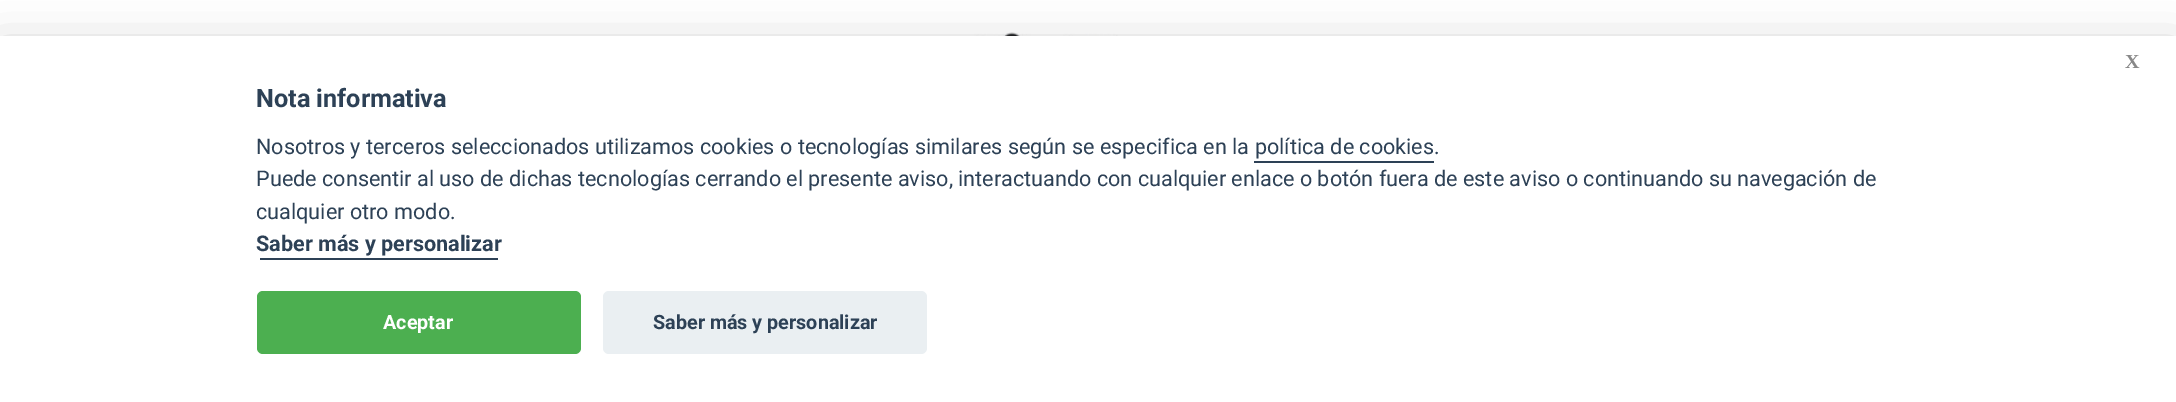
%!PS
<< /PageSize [2176 402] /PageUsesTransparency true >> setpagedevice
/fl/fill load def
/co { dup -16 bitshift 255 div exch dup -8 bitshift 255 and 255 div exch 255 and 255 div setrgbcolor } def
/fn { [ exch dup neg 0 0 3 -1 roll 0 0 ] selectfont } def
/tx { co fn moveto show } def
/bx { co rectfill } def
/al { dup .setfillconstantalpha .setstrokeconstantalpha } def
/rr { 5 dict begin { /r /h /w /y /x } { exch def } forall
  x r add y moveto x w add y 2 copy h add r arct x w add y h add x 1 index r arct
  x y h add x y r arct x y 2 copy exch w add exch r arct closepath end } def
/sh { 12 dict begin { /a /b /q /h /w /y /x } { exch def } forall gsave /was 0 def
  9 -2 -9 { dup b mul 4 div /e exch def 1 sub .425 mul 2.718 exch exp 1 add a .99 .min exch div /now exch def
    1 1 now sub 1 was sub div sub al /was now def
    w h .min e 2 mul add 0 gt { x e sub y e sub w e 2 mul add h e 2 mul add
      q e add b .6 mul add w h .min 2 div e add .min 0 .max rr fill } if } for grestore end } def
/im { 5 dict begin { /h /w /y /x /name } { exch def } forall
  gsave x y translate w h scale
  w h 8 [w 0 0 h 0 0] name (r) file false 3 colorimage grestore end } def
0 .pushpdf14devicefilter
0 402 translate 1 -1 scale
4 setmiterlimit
0 0 2176 402 16#FFFFFF bx
(media/1.raw) 954 32 270 4 im
16#020203 co
0 51 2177 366 0 22.5 .28 sh
0 36 2176 366 16#FFFFFF bx
16#4CAF50 co
257 291 324 63 6 rr fl
16#EAEFF2 co
603 291 324 63 6 rr fl
1254 161 180 2 16#2D4156 bx
260 258 238 2 16#2D4156 bx
(X) 2125 68 /LiberationSerif-Bold 20 16#888888 tx
(Aceptar) 383 329 /Roboto-Bold 19.75 16#FFFFFF tx
(Saber más y personalizar) 653 329 /Roboto-Bold 19.75 16#2D4156 tx
(Nota informativa) 256 107 /Roboto-Bold 25.25 16#2D4156 tx
(Nosotros y terceros seleccionados utilizamos cookies o tecnologías similares según se especifica en la política de cookies.) 256 154 /Roboto-Regular 21.6 16#2D4156 tx
(Puede consentir al uso de dichas tecnologías cerrando el presente aviso, interactuando con cualquier enlace o botón fuera de este aviso o continuando su navegación de) 256 186 /Roboto-Regular 21.6 16#2D4156 tx
(cualquier otro modo.) 256 219 /Roboto-Regular 21.6 16#2D4156 tx
(Saber más y personalizar) 256 251 /Roboto-Bold 21.6 16#2D4156 tx
.poppdf14devicefilter showpage
